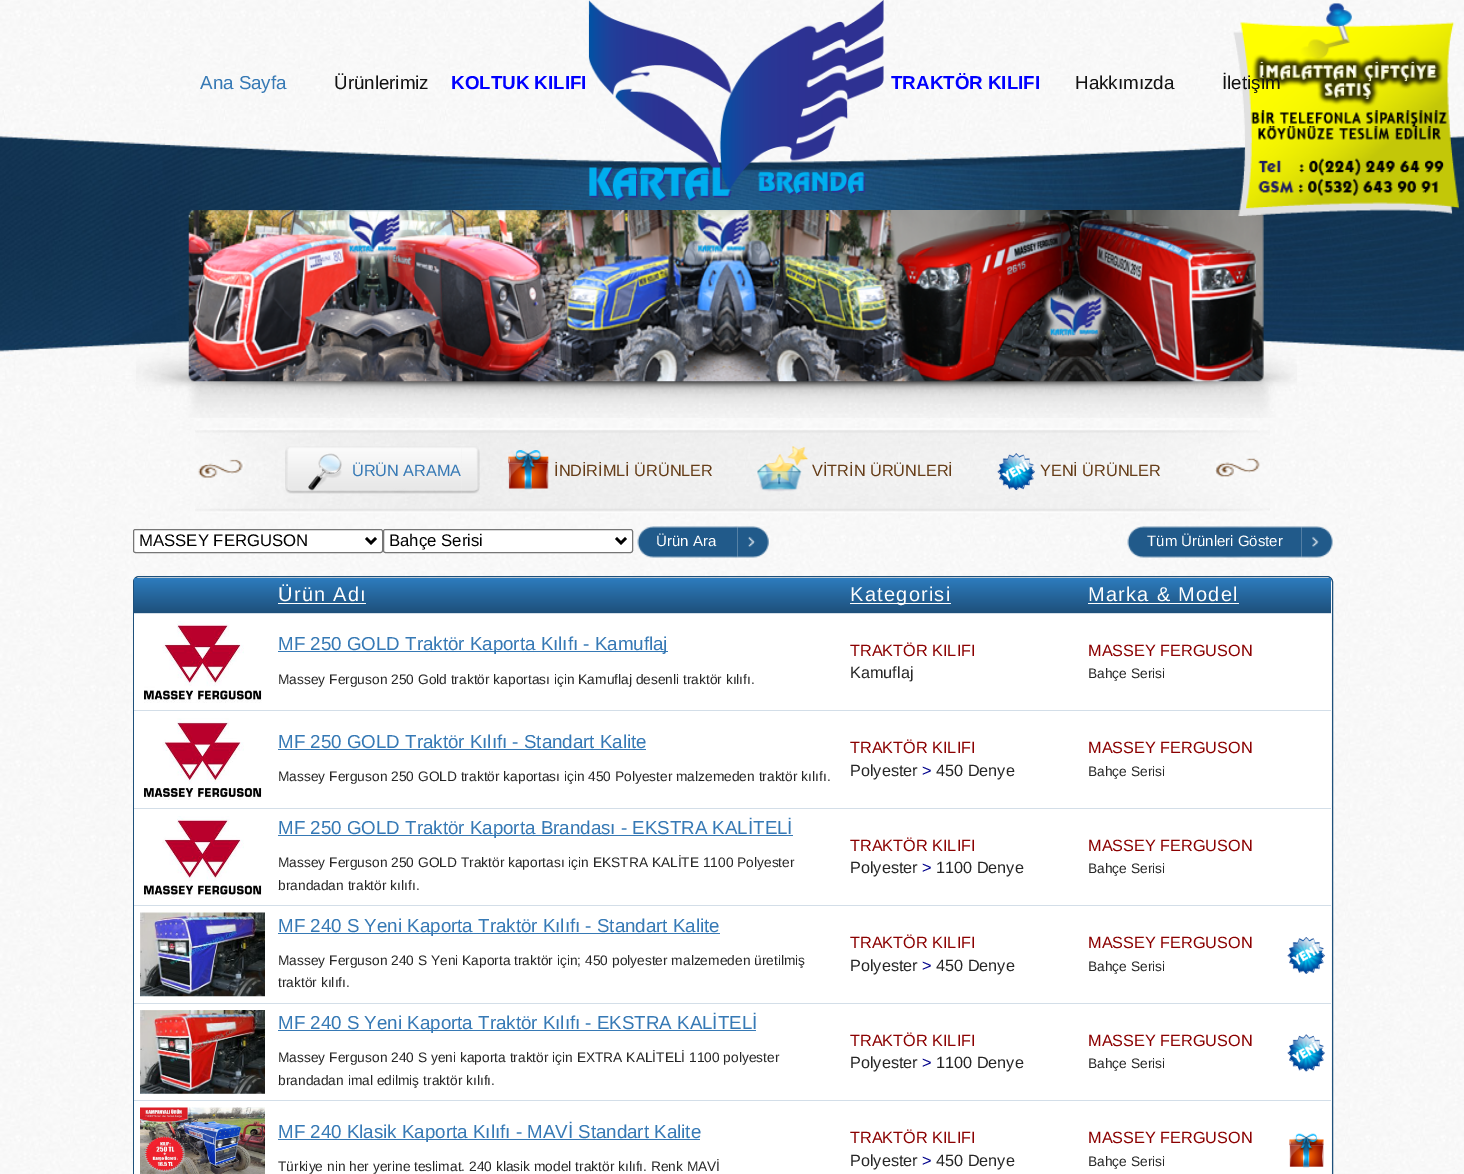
%!PS
<< /PageSize [1464 1174] >> setpagedevice
/mt/moveto load def
/li/lineto load def
/cp/closepath load def
/fl/fill load def
/st/stroke load def
/gs/gsave load def
/gr/grestore load def
/lw/setlinewidth load def
/co { dup -16 bitshift 255 div exch dup -8 bitshift 255 and 255 div exch 255 and 255 div setrgbcolor } def
/fn { [ exch dup neg 0 0 3 -1 roll 0 0 ] selectfont } def
/tx { co fn moveto show } def
/bx { co rectfill } def
/rr { 5 dict begin { /r /h /w /y /x } { exch def } forall
  x r add y moveto x w add y 2 copy h add r arct x w add y h add x 1 index r arct
  x y h add x y r arct x y 2 copy exch w add exch r arct closepath end } def
/im { 5 dict begin { /h /w /y /x /name } { exch def } forall
  gsave x y translate w h scale
  w h 8 [w 0 0 h 0 0] name (r) file false 3 colorimage grestore end } def
0 1174 translate 1 -1 scale
4 setmiterlimit
0 0 1464 1174 16#FFFFFF bx
(media/1.raw) 0 0 1464 1174 im
(media/3.raw) 0 110 1464 272 im
(media/2.raw) 588 0 296 202 im
(media/4.raw) 136 349 1161 69 im
(media/5.raw) 188 210 1076 172 im
(media/6.raw) 195 428 1075 85 im
(media/7.raw) 461 446 19 48 im
(media/8.raw) 285 446 177 48 im
(media/9.raw) 308 453 34 38 im
(media/10.raw) 508 450 41 40 im
(media/11.raw) 757 446 51 46 im
(media/12.raw) 997 453 38 37 im
133.5 529.5 249 23 2 rr gs fl gr
16#767676 co
st
16#000000 co
2.5 lw
366 538 mt 371 543 li 376 538 li st
16#FFFFFF co
383.5 529.5 249 23 2 rr gs fl gr
16#767676 co
1 lw
st
16#000000 co
2.5 lw
616 538 mt 621 543 li 626 538 li st
(media/13.raw) 737 526 32 32 im
(media/14.raw) 637 526 101 32 im
(media/15.raw) 1301 526 32 32 im
(media/16.raw) 1127 526 175 32 im
16#1E507B co
1 lw
133.5 576.5 1199 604 5.5 rr st
gs 134 578 mt 271 578 li 271 613 li 134 613 li cp clip newpath
<< /ShadingType 2 /ColorSpace /DeviceRGB /Coords [134 578 134 613] /Extend [true true] /Function << /FunctionType 2 /Domain [0 1] /C0 [.176 .486 .745] /C1 [.118 .314 .482] /N 1 >> >> shfill gr
gs 271 578 mt 844 578 li 844 613 li 271 613 li cp clip newpath
<< /ShadingType 2 /ColorSpace /DeviceRGB /Coords [271 578 271 613] /Extend [true true] /Function << /FunctionType 2 /Domain [0 1] /C0 [.176 .486 .745] /C1 [.118 .314 .482] /N 1 >> >> shfill gr
278 603 88 1 16#FFFFFF bx
gs 844 578 mt 1081 578 li 1081 613 li 844 613 li cp clip newpath
<< /ShadingType 2 /ColorSpace /DeviceRGB /Coords [844 578 844 613] /Extend [true true] /Function << /FunctionType 2 /Domain [0 1] /C0 [.176 .486 .745] /C1 [.118 .314 .482] /N 1 >> >> shfill gr
850 603 101 1 16#FFFFFF bx
gs 1081 578 mt 1281 578 li 1281 613 li 1081 613 li cp clip newpath
<< /ShadingType 2 /ColorSpace /DeviceRGB /Coords [1081 578 1081 613] /Extend [true true] /Function << /FunctionType 2 /Domain [0 1] /C0 [.176 .486 .745] /C1 [.118 .314 .482] /N 1 >> >> shfill gr
1088 603 151 1 16#FFFFFF bx
gs 1281 578 mt 1331 578 li 1331 613 li 1281 613 li cp clip newpath
<< /ShadingType 2 /ColorSpace /DeviceRGB /Coords [1281 578 1281 613] /Extend [true true] /Function << /FunctionType 2 /Domain [0 1] /C0 [.176 .486 .745] /C1 [.118 .314 .482] /N 1 >> >> shfill gr
134 614 1197 96 16#FFFFFF bx
134 613 1197 1 16#D3DEE8 bx
(media/17.raw) 144 621 118 82 im
278 651 390 1 16#3679B5 bx
134 711 1197 97 16#FFFFFF bx
134 710 1197 1 16#D3DEE8 bx
(media/18.raw) 144 718 118 82 im
278 749 368 1 16#3679B5 bx
134 809 1197 96 16#FFFFFF bx
134 808 1197 1 16#D3DEE8 bx
(media/17.raw) 144 816 118 82 im
278 835 515 1 16#3679B5 bx
134 906 1197 97 16#FFFFFF bx
134 905 1197 1 16#D3DEE8 bx
(media/19.raw) 140 912 125 85 im
278 933 442 1 16#3679B5 bx
(media/20.raw) 1287 937 38 37 im
134 1004 1197 96 16#FFFFFF bx
134 1003 1197 1 16#D3DEE8 bx
(media/21.raw) 140 1010 125 84 im
278 1030 478 1 16#3679B5 bx
(media/22.raw) 1287 1034 38 38 im
134 1101 1197 73 16#FFFFFF bx
134 1100 1197 1 16#D3DEE8 bx
(media/23.raw) 140 1107 125 67 im
278 1139 422 1 16#3679B5 bx
(media/24.raw) 1289 1133 35 35 im
(media/25.raw) 1233 3 226 214 im
(Ana Sayfa) 200 89 /LiberationSans-Regular 18.75 16#3679B5 tx
(Ürünlerimiz) 334 89 /LiberationSans-Regular 18.75 16#121212 tx
(KOLTUK KILIFI) 451 89 /LiberationSans-Bold 18.75 16#0000FF tx
(TRAKTÖR KILIFI) 891 89 /LiberationSans-Bold 18.75 16#0000FF tx
(Hakkımızda) 1075 89 /LiberationSans-Regular 18.75 16#121212 tx
(İletişim) 1222 89 /LiberationSans-Regular 18.75 16#121212 tx
(ÜRÜN ARAMA) 352 476 /LiberationSans-Regular 16.25 16#3679B5 tx
(İNDİRİMLİ ÜRÜNLER) 554 476 /LiberationSans-Regular 16.25 16#653C17 tx
(VİTRİN ÜRÜNLERİ) 812 476 /LiberationSans-Regular 16.25 16#653C17 tx
(YENİ ÜRÜNLER) 1040 476 /LiberationSans-Regular 16.25 16#653C17 tx
(MASSEY FERGUSON) 139 546 /LiberationSans-Regular 16.75 16#000000 tx
(Bahçe Serisi) 389 546 /LiberationSans-Regular 16.75 16#000000 tx
(Ürün Ara) 656 546 /LiberationSans-Regular 15 16#FEFEFE tx
(Tüm Ürünleri Göster) 1147 546 /LiberationSans-Regular 15 16#FEFEFE tx
/LiberationSans-Regular 20 fn
278 601 mt 1.25 0 (Ürün Adı) ashow
850 601 mt 1.25 0 (Kategorisi) ashow
1088 601 mt 1.25 0 (Marka & Model) ashow
(MF 250 GOLD Traktör Kaporta Kılıfı - Kamuflaj) 278 650 /LiberationSans-Regular 18.75 16#3679B5 tx
(Massey Ferguson 250 Gold traktör kaportası için Kamuflaj desenli traktör kılıfı.) 278 684 /LiberationSans-Regular 13.75 16#262626 tx
(TRAKTÖR KILIFI) 850 656 /LiberationSans-Regular 16.25 16#8B0000 tx
(Kamuflaj) 850 678 /LiberationSans-Regular 16.25 16#262626 tx
(MASSEY FERGUSON) 1088 656 /LiberationSans-Regular 16.25 16#8B0000 tx
(Bahçe Serisi) 1088 678 /LiberationSans-Regular 13.75 16#262626 tx
(MF 250 GOLD Traktör Kılıfı - Standart Kalite) 278 748 /LiberationSans-Regular 18.75 16#3679B5 tx
(Massey Ferguson 250 GOLD traktör kaportası için 450 Polyester malzemeden traktör kılıfı.) 278 781 /LiberationSans-Regular 13.75 16#262626 tx
(TRAKTÖR KILIFI) 850 753 /LiberationSans-Regular 16.25 16#8B0000 tx
(Polyester) 850 776 /LiberationSans-Regular 16.25 16#262626 tx
(>) 922 776 /LiberationSans-Regular 16.25 16#00008B tx
(450 Denye) 936 776 /LiberationSans-Regular 16.25 16#262626 tx
(MASSEY FERGUSON) 1088 753 /LiberationSans-Regular 16.25 16#8B0000 tx
(Bahçe Serisi) 1088 776 /LiberationSans-Regular 13.75 16#262626 tx
(MF 250 GOLD Traktör Kaporta Brandası - EKSTRA KALİTELİ) 278 834 /LiberationSans-Regular 18.75 16#3679B5 tx
(Massey Ferguson 250 GOLD Traktör kaportası için EKSTRA KALİTE 1100 Polyester) 278 867 /LiberationSans-Regular 13.75 16#262626 tx
(brandadan traktör kılıfı.) 278 890 /LiberationSans-Regular 13.75 16#262626 tx
(TRAKTÖR KILIFI) 850 851 /LiberationSans-Regular 16.25 16#8B0000 tx
(Polyester) 850 873 /LiberationSans-Regular 16.25 16#262626 tx
(>) 922 873 /LiberationSans-Regular 16.25 16#00008B tx
(1100 Denye) 936 873 /LiberationSans-Regular 16.25 16#262626 tx
(MASSEY FERGUSON) 1088 851 /LiberationSans-Regular 16.25 16#8B0000 tx
(Bahçe Serisi) 1088 873 /LiberationSans-Regular 13.75 16#262626 tx
(MF 240 S Yeni Kaporta Traktör Kılıfı - Standart Kalite) 278 932 /LiberationSans-Regular 18.75 16#3679B5 tx
(Massey Ferguson 240 S Yeni Kaporta traktör için; 450 polyester malzemeden üretilmiş) 278 965 /LiberationSans-Regular 13.75 16#262626 tx
(traktör kılıfı.) 278 987 /LiberationSans-Regular 13.75 16#262626 tx
(TRAKTÖR KILIFI) 850 948 /LiberationSans-Regular 16.25 16#8B0000 tx
(Polyester) 850 971 /LiberationSans-Regular 16.25 16#262626 tx
(>) 922 971 /LiberationSans-Regular 16.25 16#00008B tx
(450 Denye) 936 971 /LiberationSans-Regular 16.25 16#262626 tx
(MASSEY FERGUSON) 1088 948 /LiberationSans-Regular 16.25 16#8B0000 tx
(Bahçe Serisi) 1088 971 /LiberationSans-Regular 13.75 16#262626 tx
(MF 240 S Yeni Kaporta Traktör Kılıfı - EKSTRA KALİTELİ) 278 1029 /LiberationSans-Regular 18.75 16#3679B5 tx
(Massey Ferguson 240 S yeni kaporta traktör için EXTRA KALİTELİ 1100 polyester) 278 1062 /LiberationSans-Regular 13.75 16#262626 tx
(brandadan imal edilmiş traktör kılıfı.) 278 1085 /LiberationSans-Regular 13.75 16#262626 tx
(TRAKTÖR KILIFI) 850 1046 /LiberationSans-Regular 16.25 16#8B0000 tx
(Polyester) 850 1068 /LiberationSans-Regular 16.25 16#262626 tx
(>) 922 1068 /LiberationSans-Regular 16.25 16#00008B tx
(1100 Denye) 936 1068 /LiberationSans-Regular 16.25 16#262626 tx
(MASSEY FERGUSON) 1088 1046 /LiberationSans-Regular 16.25 16#8B0000 tx
(Bahçe Serisi) 1088 1068 /LiberationSans-Regular 13.75 16#262626 tx
(MF 240 Klasik Kaporta Kılıfı - MAVİ Standart Kalite) 278 1138 /LiberationSans-Regular 18.75 16#3679B5 tx
(Türkiye nin her yerine teslimat. 240 klasik model traktör kılıfı. Renk MAVİ) 278 1171 /LiberationSans-Regular 13.75 16#262626 tx
(TRAKTÖR KILIFI) 850 1143 /LiberationSans-Regular 16.25 16#8B0000 tx
(Polyester) 850 1166 /LiberationSans-Regular 16.25 16#262626 tx
(>) 922 1166 /LiberationSans-Regular 16.25 16#00008B tx
(450 Denye) 936 1166 /LiberationSans-Regular 16.25 16#262626 tx
(MASSEY FERGUSON) 1088 1143 /LiberationSans-Regular 16.25 16#8B0000 tx
(Bahçe Serisi) 1088 1166 /LiberationSans-Regular 13.75 16#262626 tx
showpage
